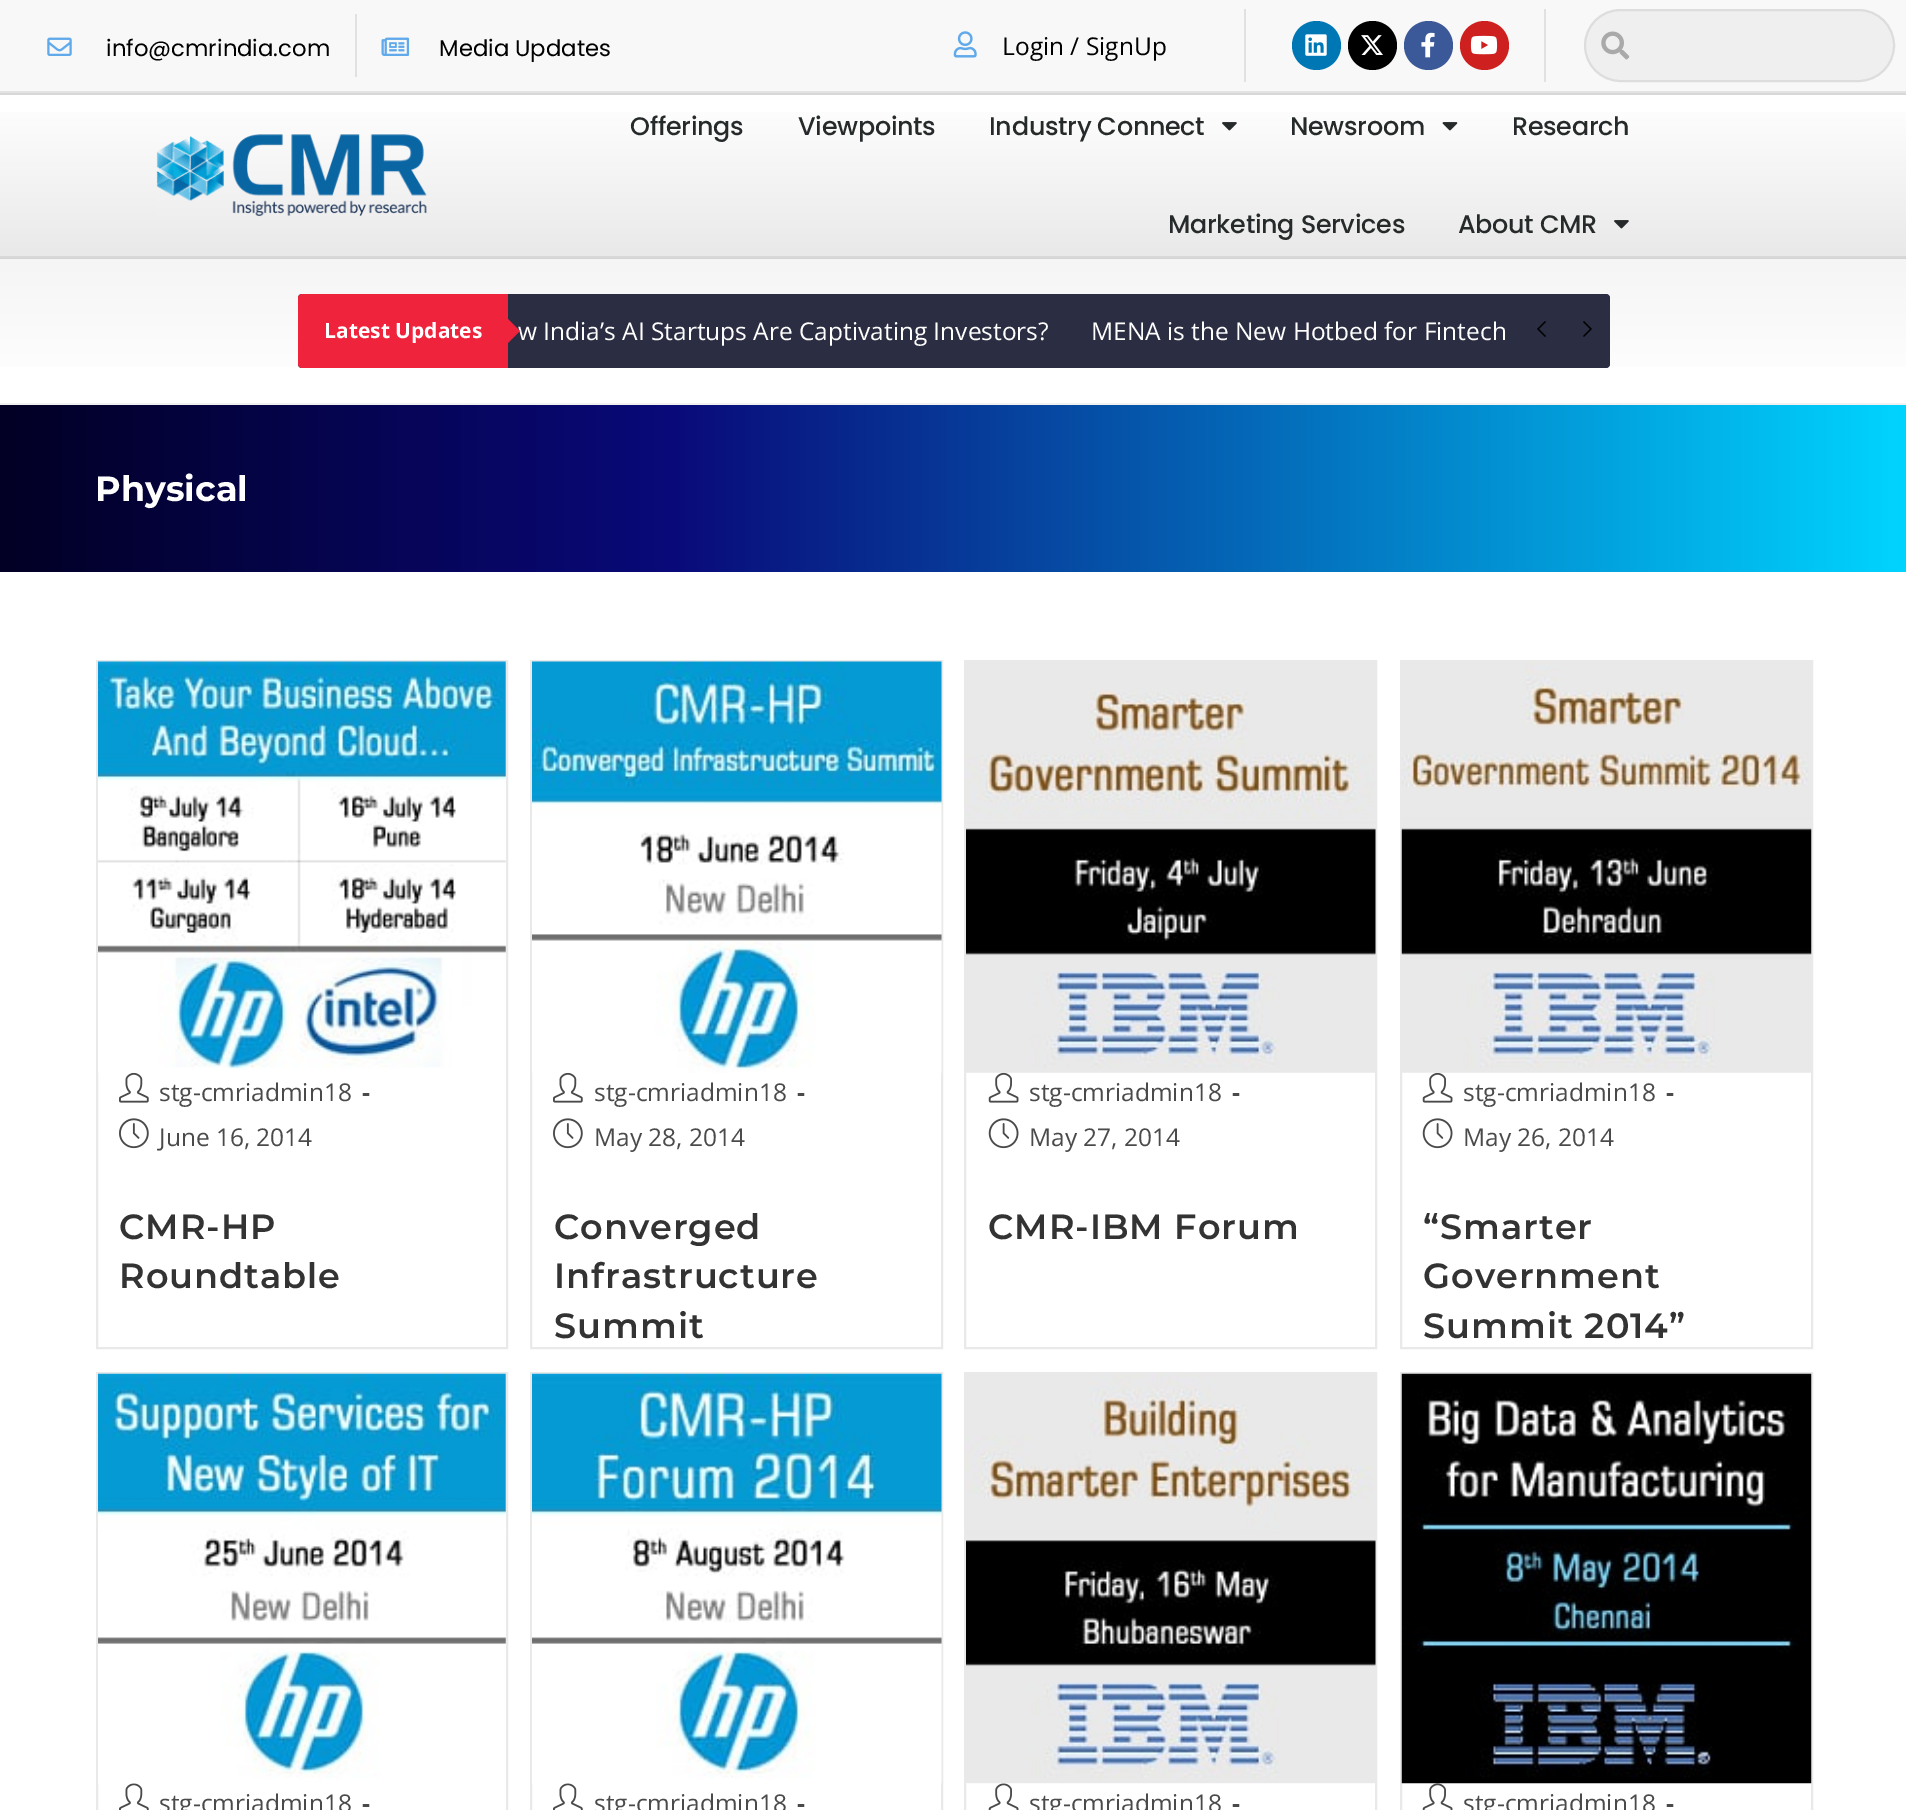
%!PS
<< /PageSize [1906 1810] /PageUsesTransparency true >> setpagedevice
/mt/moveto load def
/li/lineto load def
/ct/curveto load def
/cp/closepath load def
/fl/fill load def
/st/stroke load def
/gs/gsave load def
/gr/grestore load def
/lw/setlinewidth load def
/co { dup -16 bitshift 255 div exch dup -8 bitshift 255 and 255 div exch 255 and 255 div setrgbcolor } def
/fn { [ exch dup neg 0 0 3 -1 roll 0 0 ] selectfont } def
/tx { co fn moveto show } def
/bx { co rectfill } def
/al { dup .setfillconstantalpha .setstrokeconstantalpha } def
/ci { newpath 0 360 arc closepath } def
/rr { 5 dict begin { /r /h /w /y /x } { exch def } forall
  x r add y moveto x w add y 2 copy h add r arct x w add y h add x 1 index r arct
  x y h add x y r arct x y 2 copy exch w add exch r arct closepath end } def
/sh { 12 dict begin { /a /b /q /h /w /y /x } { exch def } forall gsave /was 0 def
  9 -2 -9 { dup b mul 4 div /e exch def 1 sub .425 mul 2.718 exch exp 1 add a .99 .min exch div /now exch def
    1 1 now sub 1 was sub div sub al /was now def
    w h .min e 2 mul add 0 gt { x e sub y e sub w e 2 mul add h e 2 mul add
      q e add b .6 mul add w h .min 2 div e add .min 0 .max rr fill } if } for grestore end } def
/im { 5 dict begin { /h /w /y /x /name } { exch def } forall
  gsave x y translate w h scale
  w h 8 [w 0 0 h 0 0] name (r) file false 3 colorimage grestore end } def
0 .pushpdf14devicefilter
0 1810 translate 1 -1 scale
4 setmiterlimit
0 0 1906 1810 16#FFFFFF bx
0 403 1906 2 16#F1F1F1 bx
0 0 1906 91 16#F8F8F8 bx
0 91 1906 2 16#E3E3E3 bx
(media/1.raw) 47 37 25 19 im
355 14 2 63 16#E1E1E1 bx
(media/2.raw) 381 37 29 19 im
1244 9 2 73 16#E1E1E1 bx
(media/3.raw) 953 31 24 27 im
1544 9 2 73 16#E1E1E1 bx
16#0077B5 co
1316.5 45.5 24.5 ci fl
(media/4.raw) 1305 34 22 22 im
16#000000 co
1372.5 45.5 24.5 ci fl
(media/5.raw) 1361 35 22 20 im
16#3B5998 co
1428.5 45.5 24.5 ci fl
(media/6.raw) 1421 32 14 26 im
16#CD201F co
1484.5 45.5 24.5 ci fl
(media/7.raw) 1470 35 28 20 im
16#EFEFEF co
1585 10 309 71 35.5 rr gs fl gr
16#DDDDDD co
2 lw
st
(media/8.raw) 1601 31 29 29 im
0 258 1906 1 16#D4D4D4 bx
gs 0 259 mt 1906 259 li 1906 367 li 0 367 li cp clip newpath
<< /ShadingType 2 /ColorSpace /DeviceRGB /Coords [954 259 954 403] /Extend [true true] /Function << /FunctionType 2 /Domain [0 1] /C0 [.961 .961 .961] /C1 [1 1 1] /N 1 >> >> shfill gr
16#2B2D42 co
298 294 1312 74 4 rr fl
gs 0 405 mt 1906 405 li 1906 572 li 0 572 li cp clip newpath
<< /ShadingType 2 /ColorSpace /DeviceRGB /Coords [0 488 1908 488] /Extend [true true] /Function << /FunctionType 3 /Domain [0 1] /Functions [<< /FunctionType 2 /Domain [0 1] /C0 [.008 0 .141] /C1 [.035 .035 .475] /N 1 >> << /FunctionType 2 /Domain [0 1] /C0 [.035 .035 .475] /C1 [0 .831 1] /N 1 >>] /Bounds [.35] /Encode [0 1 0 1] >> >> shfill gr
gs
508 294 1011 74 rectclip
485 273 44 116 0 10.5 1 sh
gr
16#000000 co
1.3 lw
1545.5 336.5 mt 1538 329 li 1545.5 321.5 li 1583.5 321.5 mt 1591 329 li 1583.5 336.5 li st
gs
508 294 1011 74 rectclip
16#2B2D42 co
1498 273 44 116 0 10.5 1 sh
gr
gs 0 112 mt 1906 112 li 1906 256 li 0 256 li cp clip newpath
<< /ShadingType 2 /ColorSpace /DeviceRGB /Coords [954 94 954 256] /Extend [true true] /Function << /FunctionType 2 /Domain [0 1] /C0 [1 1 1] /C1 [.914 .914 .914] /N 1 >> >> shfill gr
0 93 1906 2 16#D8D8D8 bx
0 256 1906 2 16#D8D8D8 bx
(media/9.raw) 156 134 271 83 im
(media/10.raw) 1222 122 15 9 im
(media/11.raw) 1442 122 16 9 im
(media/12.raw) 1614 220 15 9 im
16#EF233C co
302 294 mt 508 294 li 508 368 li 302 368 li 300 368 298 366 298 364 ct 298 298 li 298 296 300 294 302 294 ct cp fl
16#E9E9E9 co
2 lw
97 661 410 687 rectstroke
(media/14.raw) 119 1072 30 31 im
(media/13.raw) 98 661 408 412 im
(media/15.raw) 119 1118 30 31 im
531 661 411 687 rectstroke
(media/14.raw) 553 1072 30 31 im
(media/16.raw) 532 661 410 412 im
(media/15.raw) 553 1118 30 31 im
965 661 411 687 rectstroke
(media/18.raw) 988 1072 31 31 im
(media/17.raw) 966 662 410 411 im
(media/19.raw) 988 1118 31 31 im
1401 661 411 687 rectstroke
(media/18.raw) 1422 1072 31 31 im
(media/20.raw) 1401 662 411 411 im
(media/19.raw) 1422 1118 31 31 im
97 1373 410 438 rectstroke
(media/22.raw) 119 1783 30 27 im
(media/21.raw) 98 1373 408 411 im
531 1373 411 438 rectstroke
(media/22.raw) 553 1783 30 27 im
(media/23.raw) 532 1373 410 411 im
965 1373 411 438 rectstroke
(media/25.raw) 988 1783 31 27 im
(media/24.raw) 966 1374 410 410 im
1401 1373 411 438 rectstroke
(media/25.raw) 1422 1783 31 27 im
(media/26.raw) 1401 1373 411 411 im
(info@cmrindia.com) 106 56 /Poppins-Regular 22.75 16#000000 tx
(Media Updates) 439 56 /Poppins-Regular 22.75 16#000000 tx
(Login / SignUp) 1002 55 /OpenSans-Regular 24.5 16#000000 tx
/Poppins-Medium 25.4 fn
16#262A2B co
630 135 mt -.3 0 (Offerings) ashow
798 135 mt -.3 0 (Viewpoints) ashow
989 135 mt -.3 0 (Industry Connect) ashow
1290 135 mt -.3 0 (Newsroom) ashow
1512 135 mt -.3 0 (Research) ashow
1168 233 mt -.3 0 (Marketing Services) ashow
1458 233 mt -.3 0 (About CMR) ashow
(Latest Updates) 324 338 /OpenSans-Bold 21 16#FFFFFF tx
(w India’s AI Startups Are Captivating Investors?) 518 340 /OpenSans-Regular 24.5 16#FFFFFF tx
16#EF233C co
506 345 mt 506 317 li 520 331 li cp fl
(MENA is the New Hotbed for Fintech) 1091 340 /OpenSans-Regular 24.5 16#FFFFFF tx
(Physical) 95 501 /Montserrat-Bold 35 16#FFFFFF tx
(stg-cmriadmin18) 159 1101 /OpenSans-Regular 24.5 16#4A4A4A tx
(-) 362 1101 /OpenSans-Bold 24.5 16#4A4A4A tx
(June 16, 2014) 159 1146 /OpenSans-Regular 24.5 16#4A4A4A tx
/Montserrat-SemiBold 35 fn
16#333333 co
119 1239 mt 1 0 (CMR-HP) ashow
119 1288 mt 1 0 (Roundtable) ashow
(stg-cmriadmin18) 594 1101 /OpenSans-Regular 24.5 16#4A4A4A tx
(-) 797 1101 /OpenSans-Bold 24.5 16#4A4A4A tx
(May 28, 2014) 594 1146 /OpenSans-Regular 24.5 16#4A4A4A tx
/Montserrat-SemiBold 35 fn
16#333333 co
554 1239 mt 1 0 (Converged) ashow
554 1288 mt 1 0 (Infrastructure) ashow
554 1338 mt 1 0 (Summit) ashow
(stg-cmriadmin18) 1029 1101 /OpenSans-Regular 24.5 16#4A4A4A tx
(-) 1232 1101 /OpenSans-Bold 24.5 16#4A4A4A tx
(May 27, 2014) 1029 1146 /OpenSans-Regular 24.5 16#4A4A4A tx
/Montserrat-SemiBold 35 fn
16#333333 co
988 1239 mt 1 0 (CMR-IBM Forum) ashow
(stg-cmriadmin18) 1463 1101 /OpenSans-Regular 24.5 16#4A4A4A tx
(-) 1666 1101 /OpenSans-Bold 24.5 16#4A4A4A tx
(May 26, 2014) 1463 1146 /OpenSans-Regular 24.5 16#4A4A4A tx
/Montserrat-SemiBold 35 fn
16#333333 co
1423 1239 mt 1 0 (“Smarter) ashow
1423 1288 mt 1 0 (Government) ashow
1423 1338 mt 1 0 (Summit 2014”) ashow
(stg-cmriadmin18) 159 1812 /OpenSans-Regular 24.5 16#4A4A4A tx
(-) 362 1812 /OpenSans-Bold 24.5 16#4A4A4A tx
(stg-cmriadmin18) 594 1812 /OpenSans-Regular 24.5 16#4A4A4A tx
(-) 797 1812 /OpenSans-Bold 24.5 16#4A4A4A tx
(stg-cmriadmin18) 1029 1812 /OpenSans-Regular 24.5 16#4A4A4A tx
(-) 1232 1812 /OpenSans-Bold 24.5 16#4A4A4A tx
(stg-cmriadmin18) 1463 1812 /OpenSans-Regular 24.5 16#4A4A4A tx
(-) 1666 1812 /OpenSans-Bold 24.5 16#4A4A4A tx
.poppdf14devicefilter showpage
